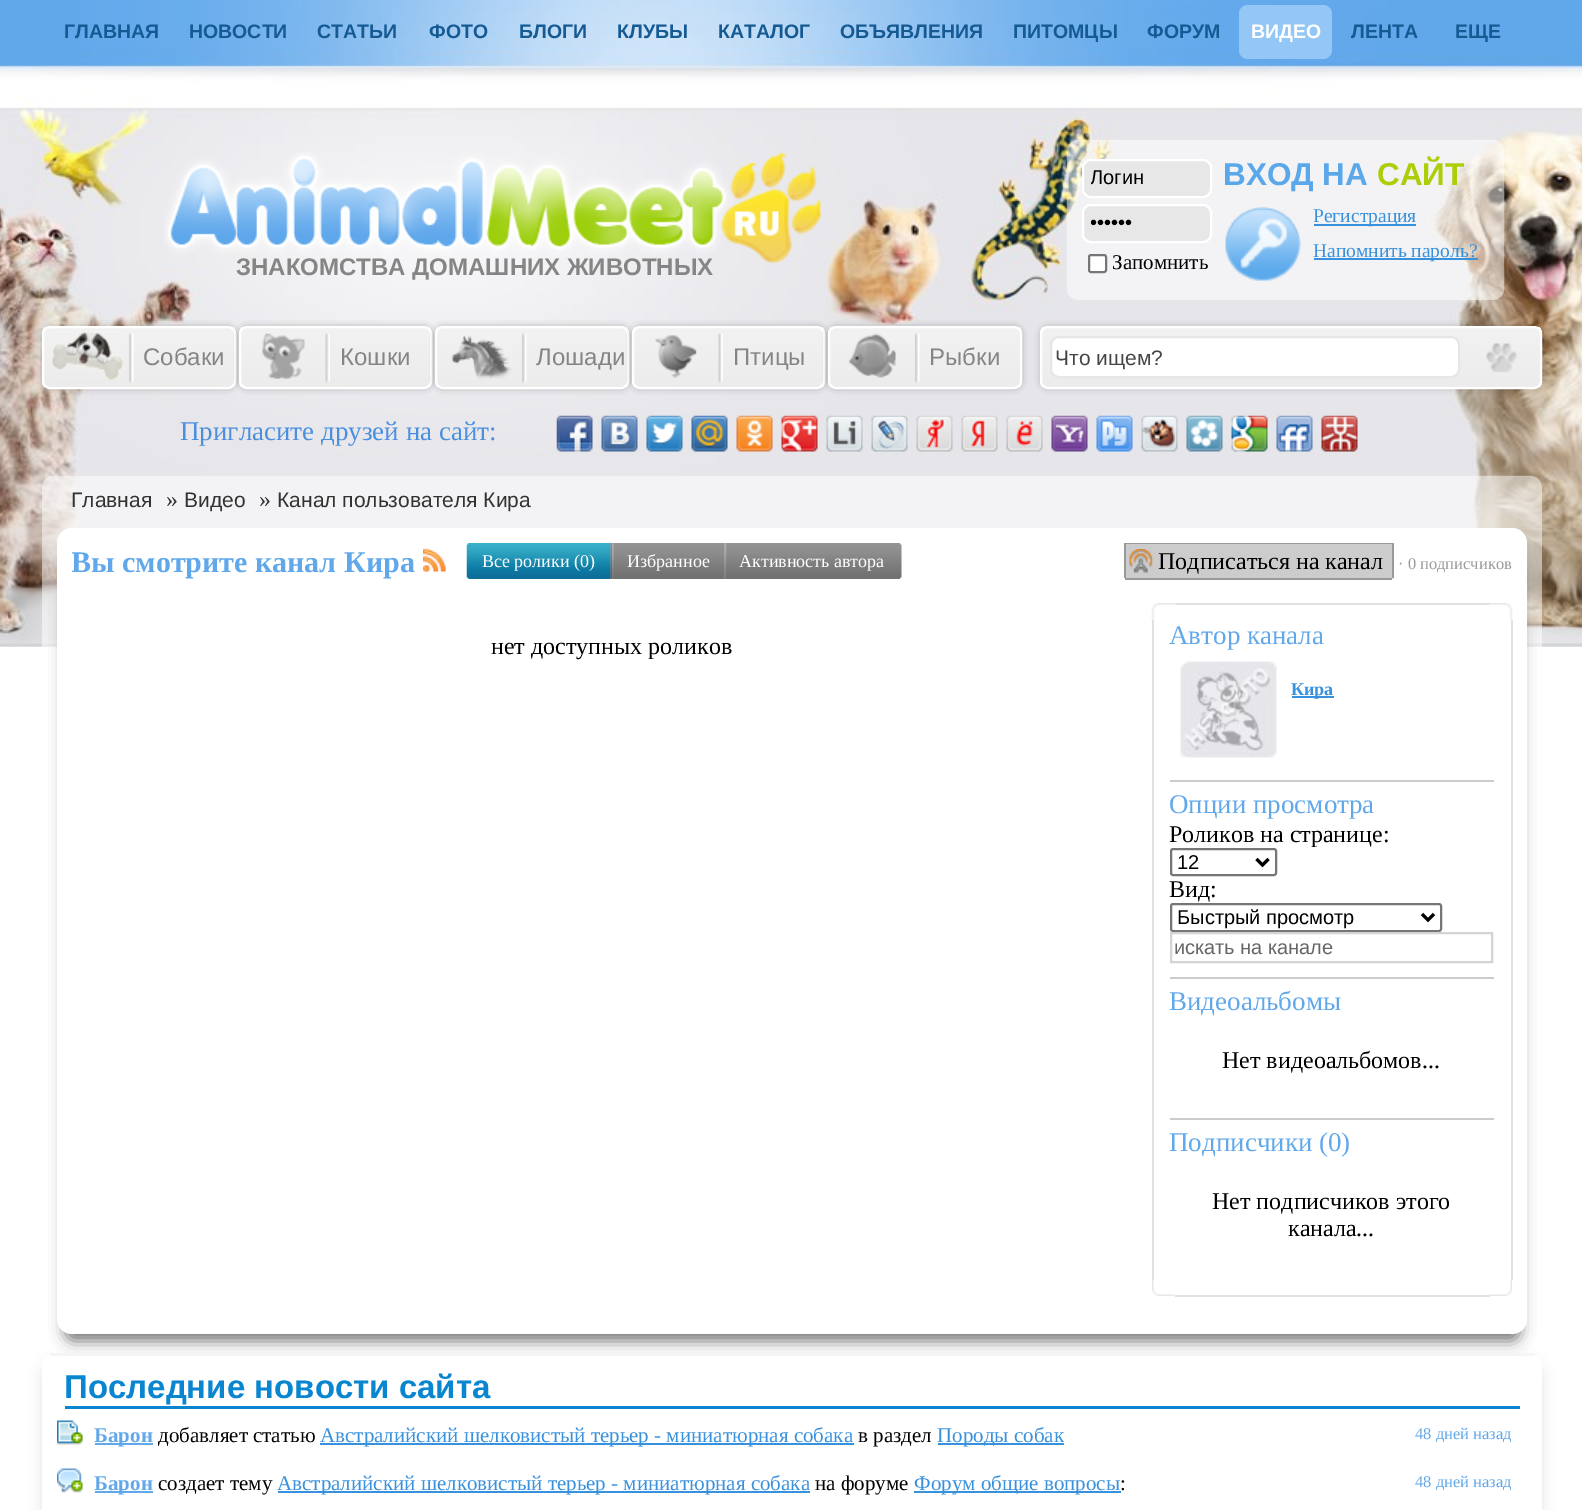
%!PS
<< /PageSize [1582 1510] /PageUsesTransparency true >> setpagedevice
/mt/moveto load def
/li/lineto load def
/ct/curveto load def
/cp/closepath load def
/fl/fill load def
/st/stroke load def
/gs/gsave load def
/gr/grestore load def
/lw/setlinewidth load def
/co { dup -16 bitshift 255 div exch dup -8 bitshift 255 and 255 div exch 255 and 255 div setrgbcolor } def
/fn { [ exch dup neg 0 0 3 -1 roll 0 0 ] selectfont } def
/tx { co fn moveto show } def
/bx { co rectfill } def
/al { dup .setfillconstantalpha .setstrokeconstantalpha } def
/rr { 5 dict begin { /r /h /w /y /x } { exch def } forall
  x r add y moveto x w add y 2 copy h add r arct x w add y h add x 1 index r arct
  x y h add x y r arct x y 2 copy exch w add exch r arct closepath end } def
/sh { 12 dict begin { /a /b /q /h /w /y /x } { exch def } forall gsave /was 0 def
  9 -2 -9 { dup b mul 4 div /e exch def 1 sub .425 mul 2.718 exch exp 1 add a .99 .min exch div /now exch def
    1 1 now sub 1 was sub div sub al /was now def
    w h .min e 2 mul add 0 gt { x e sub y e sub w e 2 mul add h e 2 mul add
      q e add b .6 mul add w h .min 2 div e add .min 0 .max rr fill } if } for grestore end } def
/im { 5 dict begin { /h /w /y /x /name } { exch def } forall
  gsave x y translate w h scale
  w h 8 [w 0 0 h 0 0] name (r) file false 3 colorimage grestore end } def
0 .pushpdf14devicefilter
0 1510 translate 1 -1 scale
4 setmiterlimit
0 0 1582 1510 16#FFFFFF bx
(media/1.raw) 0 646 1582 1 im
(media/2.raw) 0 65 1582 582 im
0 0 81 65 16#61A8EB bx
(media/3.raw) 81 0 1501 65 im
16#94C7F6 co
1239 5 93 54 9 rr fl
(media/4.raw) 164 152 657 111 im
(media/5.raw) 1066 139 439 161 im
16#E7E7E7 co
1083 160 128 37 8 rr gs fl gr
16#FFFFFF co
2 lw
st
16#E7E7E7 co
1083 205 128 37 8 rr gs fl gr
16#FFFFFF co
st
1089 255 17 17 2 rr gs fl gr
16#767676 co
st
(media/6.raw) 1225 206 76 75 im
1314 224 102 2 16#3791DC bx
1314 258 164 2 16#3791DC bx
16#000000 co
45 329 188 57 5 4 .6 sh
gs
42 326 194 63 8 rr clip newpath
gs 42 327 mt 236 327 li 236 387 li 42 387 li cp clip newpath
<< /ShadingType 2 /ColorSpace /DeviceRGB /Coords [139 327 139 387] /Extend [true true] /Function << /FunctionType 2 /Domain [0 1] /C0 [.953 .949 .953] /C1 [.925 .925 .925] /N 1 >> >> shfill gr
gr
16#FFFFFF co
43 327 192 61 7 rr st
(media/7.raw) 51 331 72 49 im
(media/8.raw) 129 333 5 50 im
16#000000 co
242 329 187 57 5 4 .6 sh
gs
239 326 193 63 8 rr clip newpath
gs 239 327 mt 432 327 li 432 387 li 239 387 li cp clip newpath
<< /ShadingType 2 /ColorSpace /DeviceRGB /Coords [335 327 335 387] /Extend [true true] /Function << /FunctionType 2 /Domain [0 1] /C0 [.953 .949 .953] /C1 [.925 .925 .925] /N 1 >> >> shfill gr
gr
16#FFFFFF co
240 327 191 61 7 rr st
(media/9.raw) 262 333 43 46 im
(media/10.raw) 325 333 5 50 im
16#000000 co
438 329 188 57 5 4 .6 sh
gs
435 326 194 63 8 rr clip newpath
gs 435 327 mt 629 327 li 629 387 li 435 387 li cp clip newpath
<< /ShadingType 2 /ColorSpace /DeviceRGB /Coords [532 327 532 387] /Extend [true true] /Function << /FunctionType 2 /Domain [0 1] /C0 [.953 .949 .953] /C1 [.925 .925 .925] /N 1 >> >> shfill gr
gr
16#FFFFFF co
436 327 192 61 7 rr st
(media/11.raw) 451 335 61 45 im
(media/8.raw) 522 333 5 50 im
16#000000 co
635 329 187 57 5 4 .6 sh
gs
632 326 193 63 8 rr clip newpath
gs 632 327 mt 825 327 li 825 387 li 632 387 li cp clip newpath
<< /ShadingType 2 /ColorSpace /DeviceRGB /Coords [728 327 728 387] /Extend [true true] /Function << /FunctionType 2 /Domain [0 1] /C0 [.953 .949 .953] /C1 [.925 .925 .925] /N 1 >> >> shfill gr
gr
16#FFFFFF co
633 327 191 61 7 rr st
(media/12.raw) 655 335 42 43 im
(media/10.raw) 718 333 5 50 im
16#000000 co
831 329 188 57 5 4 .6 sh
gs
828 326 194 63 8 rr clip newpath
gs 828 327 mt 1022 327 li 1022 387 li 828 387 li cp clip newpath
<< /ShadingType 2 /ColorSpace /DeviceRGB /Coords [925 327 925 387] /Extend [true true] /Function << /FunctionType 2 /Domain [0 1] /C0 [.953 .949 .953] /C1 [.925 .925 .925] /N 1 >> >> shfill gr
gr
16#FFFFFF co
829 327 192 61 7 rr st
(media/13.raw) 848 333 48 45 im
(media/8.raw) 915 333 5 50 im
16#000000 co
1043 329 496 57 5 4 .5 sh
gs
1040 326 502 63 8 rr clip newpath
gs 1040 327 mt 1542 327 li 1542 387 li 1040 387 li cp clip newpath
<< /ShadingType 2 /ColorSpace /DeviceRGB /Coords [1291 327 1291 387] /Extend [true true] /Function << /FunctionType 2 /Domain [0 1] /C0 [.953 .949 .953] /C1 [.925 .925 .925] /N 1 >> >> shfill gr
gr
16#FFFFFF co
1041 327 500 61 7 rr st
1051 337 408 40 8 rr gs fl gr
16#E6E6E6 co
st
(media/14.raw) 1486 343 31 30 im
(media/15.raw) 556 415 37 37 im
(media/16.raw) 601 415 37 37 im
(media/17.raw) 646 415 37 37 im
(media/18.raw) 691 415 37 37 im
(media/19.raw) 736 415 37 37 im
(media/20.raw) 781 415 37 37 im
(media/21.raw) 826 415 37 37 im
(media/22.raw) 871 415 37 37 im
(media/23.raw) 916 415 37 37 im
(media/24.raw) 961 415 37 37 im
(media/25.raw) 1006 415 37 37 im
(media/26.raw) 1051 415 37 37 im
(media/27.raw) 1096 415 37 37 im
(media/28.raw) 1141 415 37 37 im
(media/29.raw) 1186 415 37 37 im
(media/30.raw) 1231 415 37 37 im
(media/31.raw) 1276 415 37 37 im
(media/32.raw) 1321 415 37 37 im
(media/33.raw) 42 475 1500 172 im
16#777777 co
65 551 1455 790 8 7.5 1 sh
16#FFFFFF co
57 528 1470 806 15 rr fl
(media/34.raw) 423 548 23 24 im
(media/35.raw) 466 543 145 36 im
(media/36.raw) 468 543 143 36 im
(media/37.raw) 610 543 115 36 im
(media/38.raw) 612 543 113 36 im
(media/39.raw) 724 543 178 36 im
(media/40.raw) 724 543 176 36 im
gs
72 543 1440 60 rectclip
16#CCCCCC co
1127 542 mt 1383 542 li 1383 579 li 1127 579 li 1125.5 579 1124 577.5 1124 576 ct 1124 545 li 1124 543.5 1125.5 542 1127 542 ct cp fl
gr
(media/41.raw) 1129 549 24 24 im
1125 543 258 1 16#999999 bx
1125 578 258 2 16#999999 bx
1124 543 2 35 16#999999 bx
gs
72 543 1440 60 rectclip
16#CCCCCC co
1383 542 mt 1391 542 li 1392.5 542 1394 543.5 1394 545 ct 1394 576 li 1394 577.5 1392.5 579 1391 579 ct 1383 579 li cp fl
gr
1383 543 9 1 16#999999 bx
1392 543 2 35 16#999999 bx
1383 578 9 2 16#999999 bx
1175 603 315 2 16#DFE1E2 bx
(media/42.raw) 1151 603 24 18 im
(media/43.raw) 1489 603 24 17 im
1154 620 1 1 16#FFFFFF bx
1511 620 2 660 16#DFE1E2 bx
1152 620 2 660 16#DFE1E2 bx
(media/44.raw) 1180 661 97 97 im
1292 696 42 2 16#3791DC bx
1170 780 324 2 16#CCCCCC bx
16#767676 co
1171 849 105 26 2 rr st
16#000000 co
3 lw
1256.5 859 mt 1262.5 865 li 1268.5 859 li st
16#767676 co
2 lw
1171 904 270 27 2 rr st
16#000000 co
3 lw
1422 914 mt 1428 920 li 1434 914 li st
16#D4D3D5 co
2 lw
1171 933 321 29 rectstroke
1170 977 324 2 16#CCCCCC bx
1170 1118 324 2 16#CCCCCC bx
1175 1295 315 2 16#DFE1E2 bx
(media/45.raw) 1152 1280 23 16 im
(media/46.raw) 1489 1280 23 16 im
16#E6E6E6 co
42 1362 1500 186 15 7.5 1 sh
16#FFFFFF co
42 1353 1500 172 15 rr fl
50 1353 1485 3 16#F5F5F5 bx
65 1406 1455 3 16#0986CF bx
(media/47.raw) 57 1420 26 25 im
95 1443 58 2 16#61A8EB bx
320 1443 534 2 16#3791DC bx
938 1443 126 2 16#3791DC bx
(media/48.raw) 57 1468 26 25 im
95 1491 58 2 16#61A8EB bx
278 1491 532 2 16#3791DC bx
914 1491 207 2 16#3791DC bx
(ГЛАВНАЯ) 64 38 /LiberationSans-Bold 19.5 16#155A93 tx
(НОВОСТИ) 189 38 /LiberationSans-Bold 19.5 16#155A93 tx
(СТАТЬИ) 317 38 /LiberationSans-Bold 19.5 16#155A93 tx
(ФОТО) 429 38 /LiberationSans-Bold 19.5 16#155A93 tx
(БЛОГИ) 519 38 /LiberationSans-Bold 19.5 16#155A93 tx
(КЛУБЫ) 617 38 /LiberationSans-Bold 19.5 16#155A93 tx
(КАТАЛОГ) 718 38 /LiberationSans-Bold 19.5 16#155A93 tx
(ОБЪЯВЛЕНИЯ) 840 38 /LiberationSans-Bold 19.5 16#155A93 tx
(ПИТОМЦЫ) 1013 38 /LiberationSans-Bold 19.5 16#155A93 tx
(ФОРУМ) 1147 38 /LiberationSans-Bold 19.5 16#155A93 tx
(ВИДЕО) 1251 38 /LiberationSans-Bold 19.5 16#FFFFFF tx
(ЛЕНТА) 1351 38 /LiberationSans-Bold 19.5 16#155A93 tx
(ЕЩЕ) 1455 38 /LiberationSans-Bold 19.5 16#155A93 tx
(ЗНАКОМСТВА ДОМАШНИХ ЖИВОТНЫХ) 236 275 /LiberationSans-Bold 24 16#858585 tx
gs
1091 167 120 22 rectclip
(Логин) 1090 184 /LiberationSans-Regular 20 16#000000 tx
gr
gs
1091 212 120 22 rectclip
(••••••) 1090 229 /LiberationSans-Regular 20 16#000000 tx
gr
(Запомнить) 1112 269 /LiberationSerif-Regular 21 16#000000 tx
(ВХОД НА) 1223 185 /LiberationSans-Bold 31.5 16#5AA8E9 tx
(САЙТ) 1377 185 /LiberationSans-Bold 31.5 16#ABCE09 tx
(Регистрация) 1313 222 /LiberationSerif-Regular 19.5 16#3791DC tx
(Напомнить пароль?) 1313 257 /LiberationSerif-Regular 19.5 16#3791DC tx
(Собаки) 143 365 /LiberationSans-Regular 24 16#858585 tx
(Кошки) 340 365 /LiberationSans-Regular 24 16#858585 tx
(Лошади) 536 365 /LiberationSans-Regular 24 16#858585 tx
(Птицы) 733 365 /LiberationSans-Regular 24 16#858585 tx
(Рыбки) 929 365 /LiberationSans-Regular 24 16#858585 tx
(Что ищем?) 1055 365 /LiberationSans-Regular 21 16#444444 tx
(Пригласите друзей на сайт:) 180 440 /LiberationSerif-Regular 27 16#498FDE tx
(Главная) 71 507 /LiberationSans-Regular 21 16#323232 tx
(») 166 507 /LiberationSerif-Regular 24 16#323232 tx
(Видео) 184 507 /LiberationSans-Regular 21 16#323232 tx
(») 259 507 /LiberationSerif-Regular 24 16#323232 tx
(Канал пользователя Кира) 277 507 /LiberationSans-Regular 21 16#323232 tx
gs
72 543 1440 60 rectclip
(Вы смотрите канал Кира) 71 572 /LiberationSerif-Bold 30 16#61A8EB tx
gr
(Все ролики \(0\)) 482 567 /LiberationSerif-Regular 18 16#FFFFFF tx
(Избранное) 627 567 /LiberationSerif-Regular 18 16#FFFFFF tx
(Активность автора) 739 567 /LiberationSerif-Regular 18 16#FFFFFF tx
(Подписаться на канал) 1158 569 /LiberationSerif-Regular 24 16#000000 tx
(· 0 подписчиков) 1398 569 /LiberationSerif-Regular 16.5 16#999999 tx
(нет доступных роликов) 491 654 /LiberationSerif-Regular 24 16#000000 tx
(Автор канала) 1169 644 /LiberationSerif-Regular 27 16#61A8EB tx
(Кира) 1291 695 /LiberationSerif-Bold 18 16#3791DC tx
(Опции просмотра) 1169 813 /LiberationSerif-Regular 27 16#61A8EB tx
(Роликов на странице:) 1169 842 /LiberationSerif-Regular 24 16#000000 tx
(12) 1177 869 /LiberationSans-Regular 20 16#000000 tx
(Вид:) 1169 897 /LiberationSerif-Regular 24 16#000000 tx
(Быстрый просмотр) 1177 924 /LiberationSans-Regular 20 16#000000 tx
(искать на канале) 1174 954 /LiberationSans-Regular 20 16#666666 tx
(Видеоальбомы) 1169 1010 /LiberationSerif-Regular 27 16#61A8EB tx
(Нет видеоальбомов...) 1222 1068 /LiberationSerif-Regular 24 16#000000 tx
(Подписчики \(0\)) 1169 1151 /LiberationSerif-Regular 27 16#61A8EB tx
(Нет подписчиков этого) 1212 1209 /LiberationSerif-Regular 24 16#000000 tx
(канала...) 1288 1236 /LiberationSerif-Regular 24 16#000000 tx
(Последние новости сайта) 64 1398 /LiberationSans-Bold 33 16#0986CF tx
(Барон) 94 1442 /LiberationSerif-Bold 21 16#61A8EB tx
(добавляет статью) 158 1442 /LiberationSerif-Regular 21 16#000000 tx
(Австралийский шелковистый терьер - миниатюрная собака) 320 1442 /LiberationSerif-Regular 21 16#3791DC tx
(в раздел) 858 1442 /LiberationSerif-Regular 21 16#000000 tx
(Породы собак) 937 1442 /LiberationSerif-Regular 21 16#3791DC tx
(48 дней назад) 1415 1439 /LiberationSerif-Regular 16.5 16#61A8EB tx
(Барон) 94 1490 /LiberationSerif-Bold 21 16#61A8EB tx
(создает тему) 158 1490 /LiberationSerif-Regular 21 16#000000 tx
(Австралийский шелковистый терьер - миниатюрная собака) 277 1490 /LiberationSerif-Regular 21 16#3791DC tx
(на форуме) 815 1490 /LiberationSerif-Regular 21 16#000000 tx
(Форум общие вопросы) 914 1490 /LiberationSerif-Regular 21 16#3791DC tx
(:) 1120 1490 /LiberationSerif-Regular 21 16#000000 tx
(48 дней назад) 1415 1487 /LiberationSerif-Regular 16.5 16#61A8EB tx
.poppdf14devicefilter showpage
